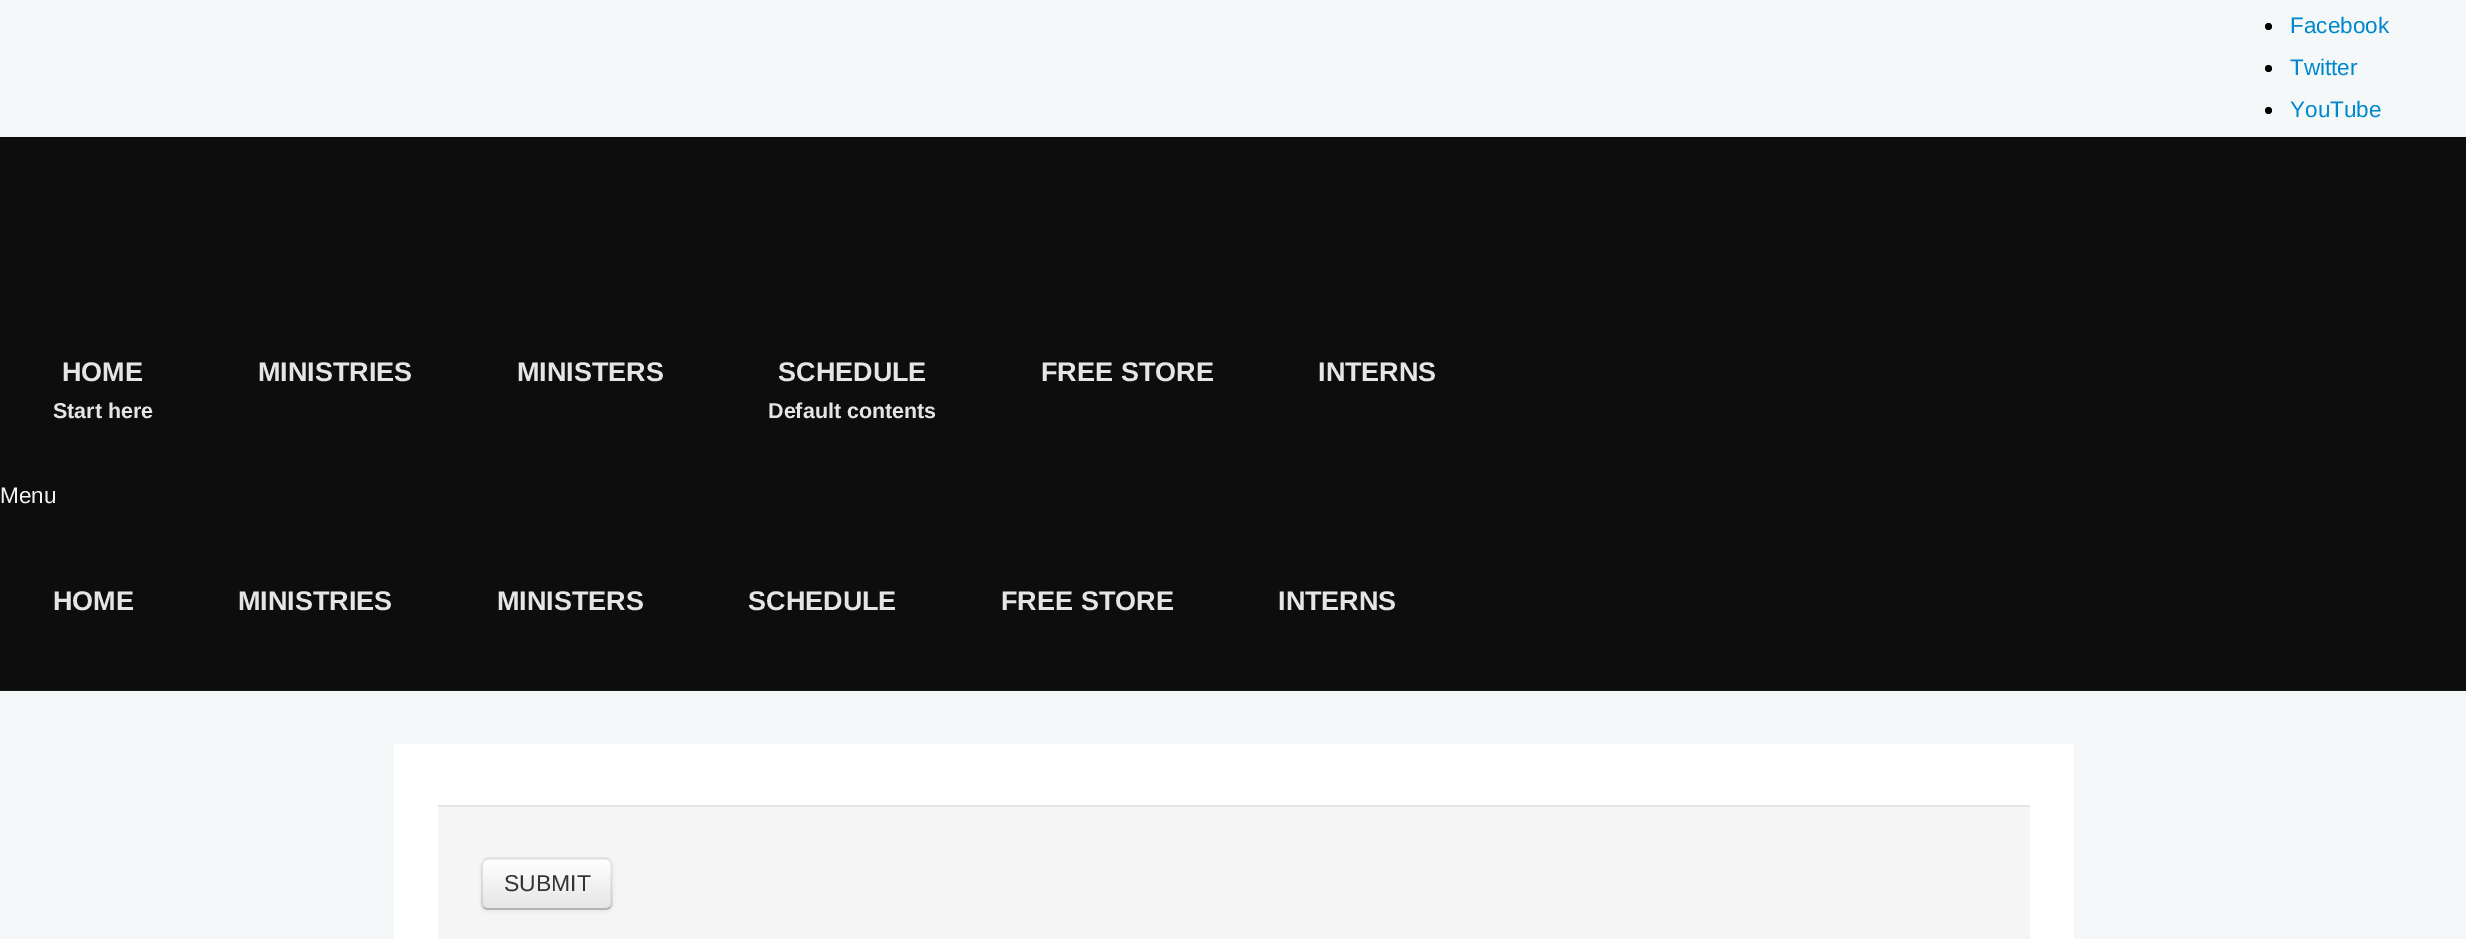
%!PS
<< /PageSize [2466 939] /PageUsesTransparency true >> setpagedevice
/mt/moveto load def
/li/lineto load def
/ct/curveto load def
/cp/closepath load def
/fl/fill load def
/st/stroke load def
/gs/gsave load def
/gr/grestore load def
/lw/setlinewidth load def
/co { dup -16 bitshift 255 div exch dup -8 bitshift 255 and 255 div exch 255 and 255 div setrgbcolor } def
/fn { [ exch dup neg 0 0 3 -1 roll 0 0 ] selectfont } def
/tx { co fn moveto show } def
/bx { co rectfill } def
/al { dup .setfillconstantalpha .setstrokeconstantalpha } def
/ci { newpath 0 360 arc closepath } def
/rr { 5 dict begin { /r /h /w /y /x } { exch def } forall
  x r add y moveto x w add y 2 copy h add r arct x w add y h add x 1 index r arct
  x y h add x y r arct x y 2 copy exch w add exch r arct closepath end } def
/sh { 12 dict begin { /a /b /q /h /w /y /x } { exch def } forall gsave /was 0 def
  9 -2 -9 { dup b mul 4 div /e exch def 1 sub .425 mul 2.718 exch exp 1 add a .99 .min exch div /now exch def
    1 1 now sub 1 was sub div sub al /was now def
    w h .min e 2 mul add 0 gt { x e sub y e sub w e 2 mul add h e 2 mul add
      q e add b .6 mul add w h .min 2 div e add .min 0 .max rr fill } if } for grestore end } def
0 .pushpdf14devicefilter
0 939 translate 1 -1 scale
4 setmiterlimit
0 0 2466 939 16#F5F8F9 bx
16#000000 co
2268.5 26.5 3.5 ci fl
2268.5 68.5 3.5 ci fl
2268.5 110.5 3.5 ci fl
0 137 2466 553 16#0D0D0D bx
0 690 2466 1 16#191919 bx
394 744 1680 195 16#FFFFFF bx
438 807 1592 132 16#F5F5F5 bx
438 805 1592 2 16#E5E5E5 bx
16#000000 co
481 859 132 53 7 2 .05 sh
16#F5F5F5 co
481 858 132 52 7 rr fl
gs
481 858 132 52 7 rr clip newpath
gs 481 859 mt 613 859 li 613 908 li 481 908 li cp clip newpath
<< /ShadingType 2 /ColorSpace /DeviceRGB /Coords [547 859 547 908] /Extend [true true] /Function << /FunctionType 2 /Domain [0 1] /C0 [1 1 1] /C1 [.902 .902 .902] /N 1 >> >> shfill gr
gr
16#B3B3B3 co
1.8 lw
610 907.5 mt 608.5 908.5 607 909 605.5 909 ct 488 909 li 486.5 909 485 908.5 484 907.5 ct st
0.1 al
16#000000 co
484 907.5 mt 481 904.5 482 900 482 896.5 ct 482 884 li 482 855 478 858.5 508 858.5 ct 586 858.5 li 616 858.5 611.5 855 611.5 884 ct 611.5 896.5 li 611.5 900 612.5 904.5 610 907.5 ct st
1 al
(Facebook) 2290 33 /LiberationSans-Regular 22.5 16#0088CC tx
(Twitter) 2290 75 /LiberationSans-Regular 22.5 16#0088CC tx
(YouTube) 2290 117 /LiberationSans-Regular 22.5 16#0088CC tx
(HOME) 62 381 /LiberationSans-Bold 27 16#E5E5E5 tx
(Start here) 53 418 /LiberationSans-Bold 21.5 16#E5E5E5 tx
(MINISTRIES) 258 381 /LiberationSans-Bold 27 16#E5E5E5 tx
(MINISTERS) 517 381 /LiberationSans-Bold 27 16#E5E5E5 tx
(SCHEDULE) 778 381 /LiberationSans-Bold 27 16#E5E5E5 tx
(Default contents) 768 418 /LiberationSans-Bold 21.5 16#E5E5E5 tx
(FREE STORE) 1041 381 /LiberationSans-Bold 27 16#E5E5E5 tx
(INTERNS) 1318 381 /LiberationSans-Bold 27 16#E5E5E5 tx
(Menu) 0 503 /LiberationSans-Regular 22.5 16#F2F2F2 tx
(HOME) 53 610 /LiberationSans-Bold 27 16#E5E5E5 tx
(MINISTRIES) 238 610 /LiberationSans-Bold 27 16#E5E5E5 tx
(MINISTERS) 497 610 /LiberationSans-Bold 27 16#E5E5E5 tx
(SCHEDULE) 748 610 /LiberationSans-Bold 27 16#E5E5E5 tx
(FREE STORE) 1001 610 /LiberationSans-Bold 27 16#E5E5E5 tx
(INTERNS) 1278 610 /LiberationSans-Bold 27 16#E5E5E5 tx
(SUBMIT) 504 891 /LiberationSans-Regular 23 16#333333 tx
.poppdf14devicefilter showpage
